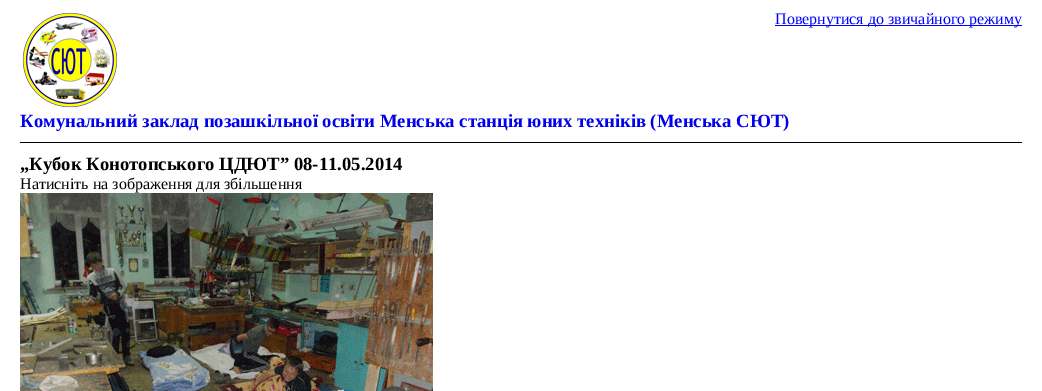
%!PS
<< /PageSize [1042 391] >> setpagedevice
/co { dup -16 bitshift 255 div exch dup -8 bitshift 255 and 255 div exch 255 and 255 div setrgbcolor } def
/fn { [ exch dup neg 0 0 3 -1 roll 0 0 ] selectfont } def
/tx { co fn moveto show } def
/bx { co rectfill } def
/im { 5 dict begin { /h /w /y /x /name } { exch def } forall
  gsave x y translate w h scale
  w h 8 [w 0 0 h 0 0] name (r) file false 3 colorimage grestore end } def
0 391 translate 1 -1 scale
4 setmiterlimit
0 0 1042 391 16#FFFFFF bx
775 25 247 1 16#0000FF bx
20 142 1002 1 16#000000 bx
(media/1.raw) 22 12 96 96 im
(media/2.raw) 20 193 413 198 im
(Повернутися до звичайного режиму) 775 24 /LiberationSerif-Regular 16 16#0000FF tx
(Комунальний заклад позашкільної освіти Менська станція юних техніків \(Менська СЮТ\)) 20 127 /LiberationSerif-Bold 18.65 16#0000EE tx
(„Кубок Конотопського ЦДЮТ” 08-11.05.2014) 20 170 /LiberationSerif-Bold 18.65 16#000000 tx
(Натиснiть на зображення для збiльшення) 20 189 /LiberationSerif-Regular 16 16#000000 tx
showpage
